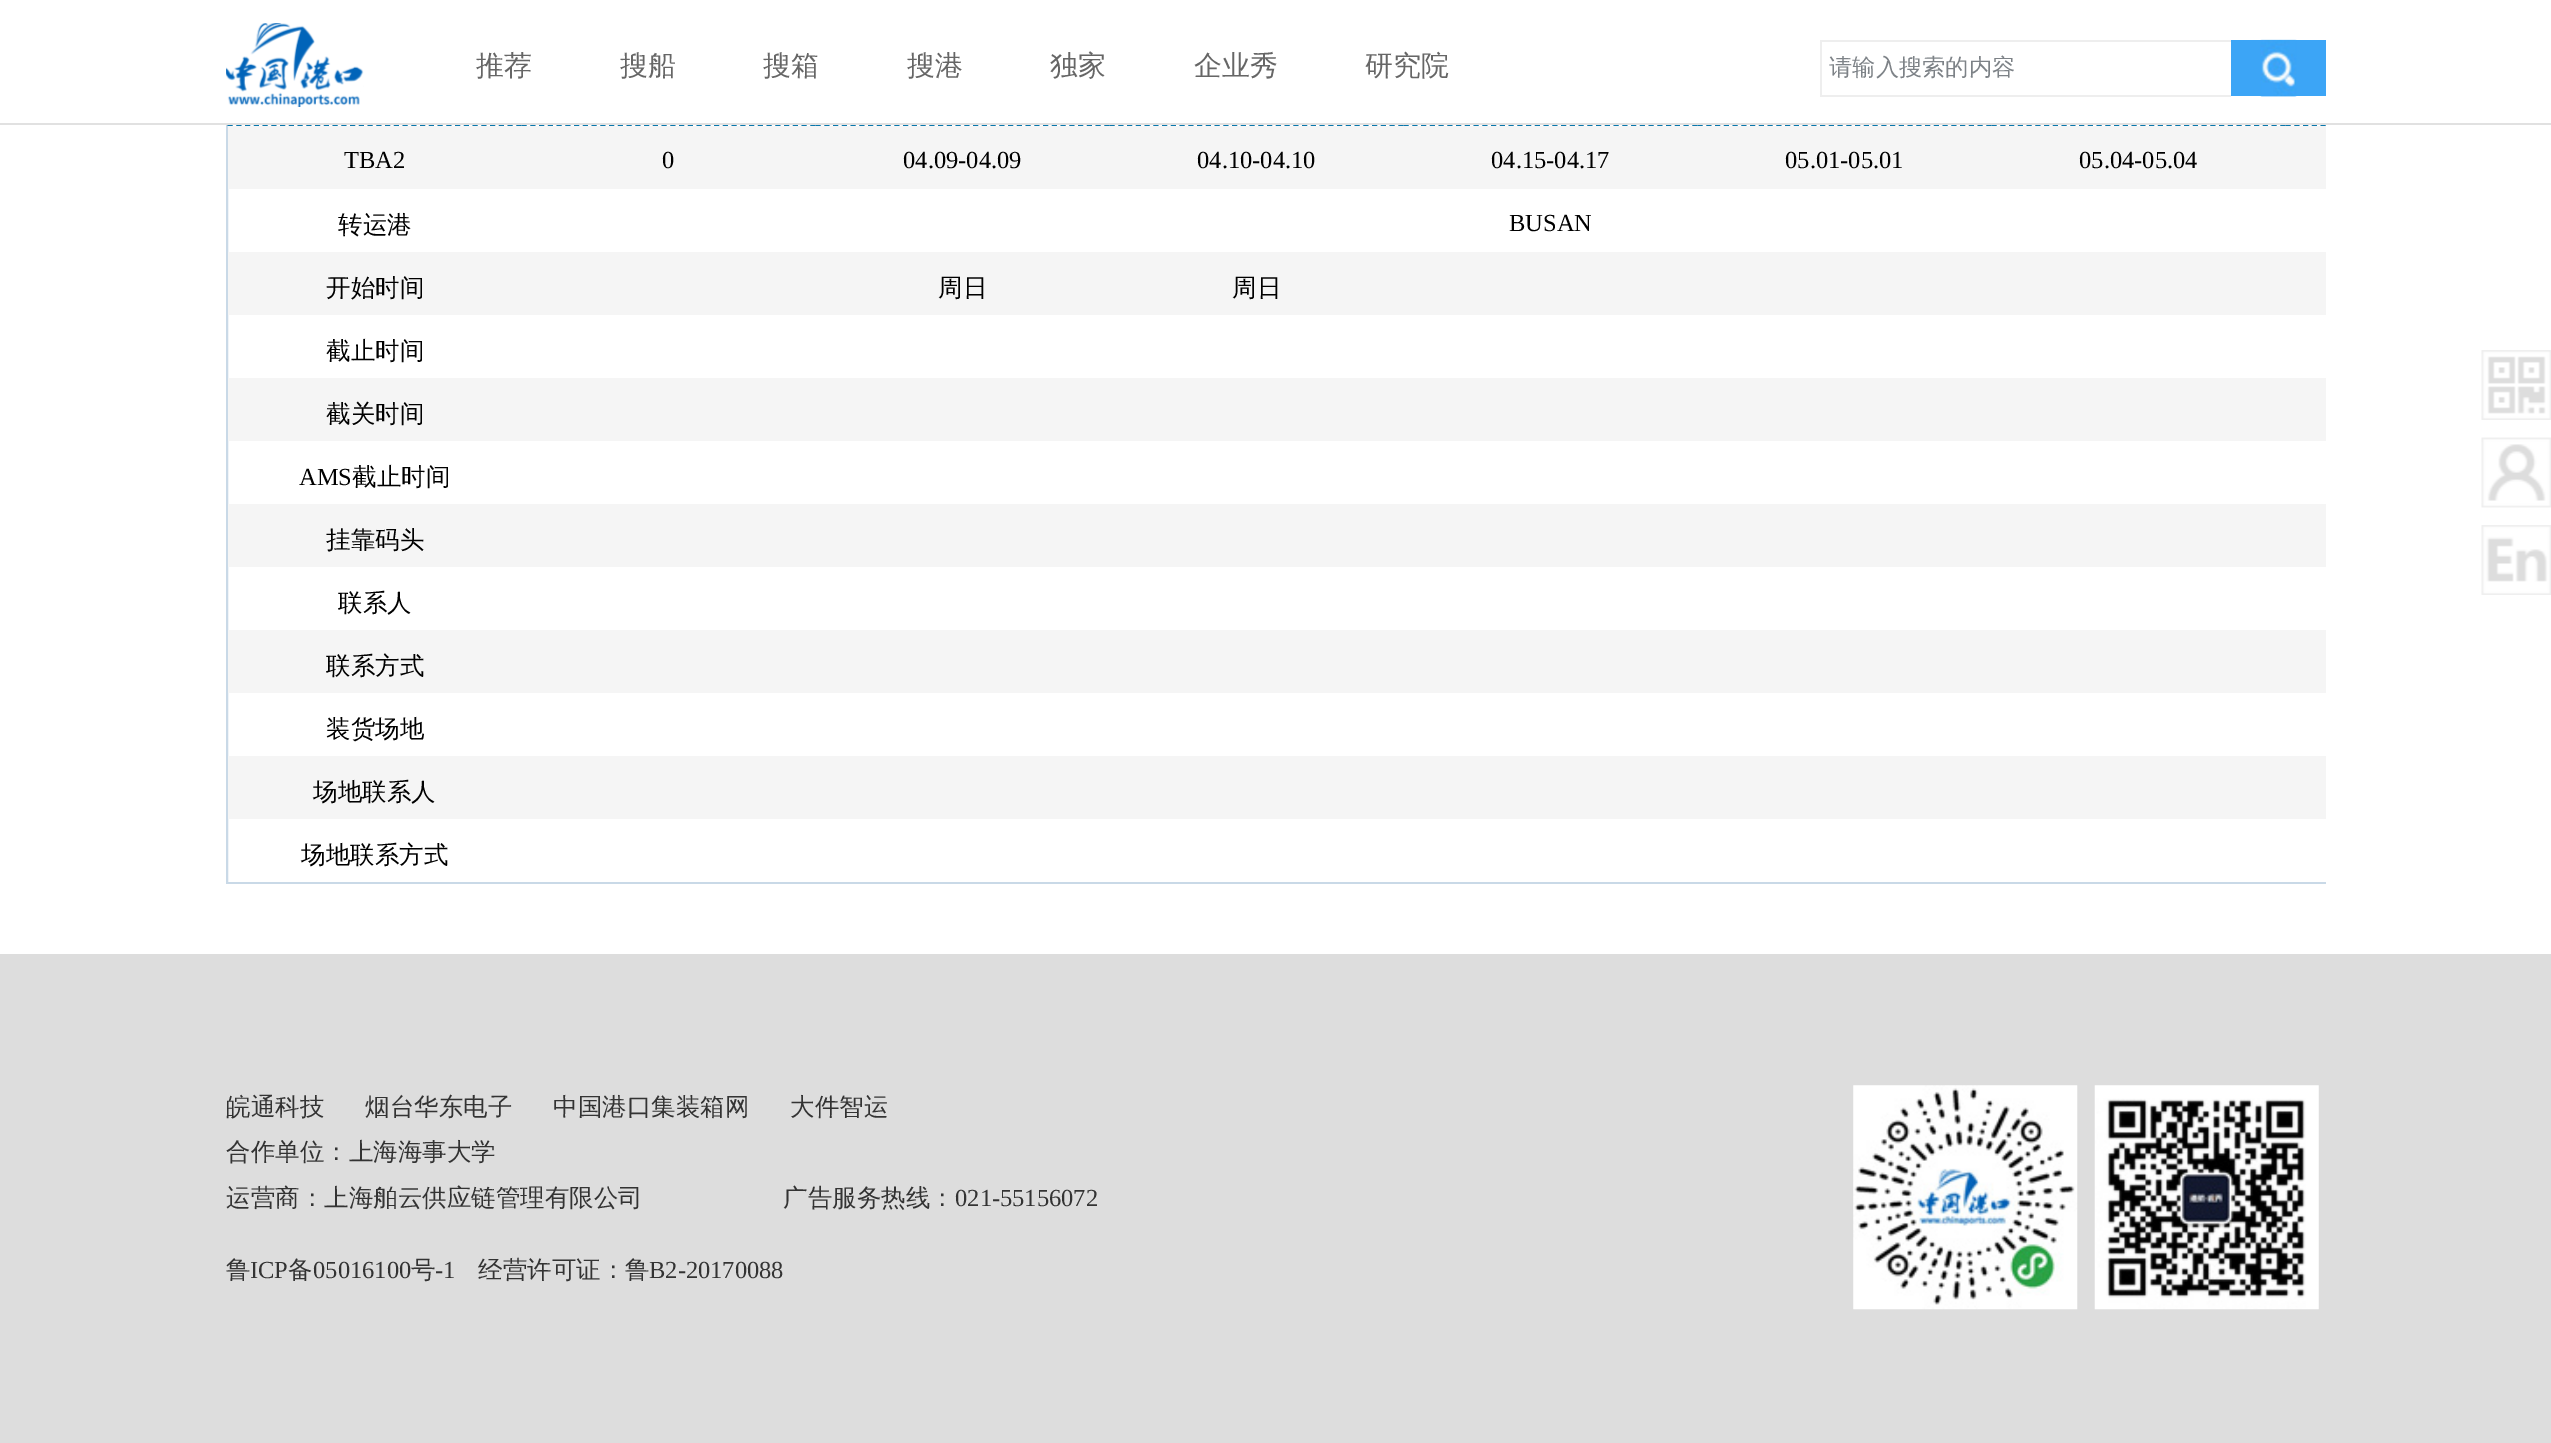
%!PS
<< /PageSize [2551 1443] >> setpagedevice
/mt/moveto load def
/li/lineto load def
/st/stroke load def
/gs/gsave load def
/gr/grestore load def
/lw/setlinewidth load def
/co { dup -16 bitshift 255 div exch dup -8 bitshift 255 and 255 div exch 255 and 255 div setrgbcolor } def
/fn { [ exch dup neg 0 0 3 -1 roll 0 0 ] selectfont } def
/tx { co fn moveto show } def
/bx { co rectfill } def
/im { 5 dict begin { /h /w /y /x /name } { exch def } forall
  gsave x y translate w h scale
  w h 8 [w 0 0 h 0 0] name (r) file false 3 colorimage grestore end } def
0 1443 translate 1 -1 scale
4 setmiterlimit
0 0 2551 1443 16#FFFFFF bx
gs
226 44 2100 840 rectclip
16#C9D9E7 co
2 lw
227 62 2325 821 rectstroke
gr
226 61 2100 62 16#FFFFFF bx
16#0977AC co
1.8 lw
[5.25 3.5] 0 setdash
227.5 125 mt 521.5 125 li st
521.5 125 mt 815.5 125 li st
815.5 125 mt 1109.5 125 li st
1109.5 125 mt 1403.5 125 li st
1403.5 125 mt 1697.5 125 li st
1697.5 125 mt 1991.5 125 li st
1991.5 125 mt 2285.5 125 li st
gs
226 44 2100 840 rectclip
2285.5 125 mt 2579.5 125 li st
gr
0 123 2551 2 16#E1E1E1 bx
(media/1.raw) 226 23 138 84 im
1820 40 411 2 16#EEEEEE bx
1820 95 411 2 16#EEEEEE bx
1820 40 2 56 16#EEEEEE bx
2231 40 95 56 16#3CA5F6 bx
(media/2.raw) 2260 39 37 58 im
228 126 2098 63 16#F5F5F5 bx
228 252 2098 63 16#F5F5F5 bx
228 378 2098 63 16#F5F5F5 bx
228 504 2098 63 16#F5F5F5 bx
228 630 2098 63 16#F5F5F5 bx
228 756 2098 63 16#F5F5F5 bx
(media/3.raw) 2481 350 70 70 im
(media/4.raw) 2481 437 70 71 im
(media/5.raw) 2481 525 70 70 im
0 954 2551 489 16#DDDDDD bx
(media/6.raw) 1853 1085 225 225 im
(media/7.raw) 2094 1085 225 225 im
(推荐) 476 75 /WenQuanYiZenHei-Medium 28 16#666666 tx
(搜船) 620 75 /WenQuanYiZenHei-Medium 28 16#666666 tx
(搜箱) 763 75 /WenQuanYiZenHei-Medium 28 16#666666 tx
(搜港) 907 75 /WenQuanYiZenHei-Medium 28 16#666666 tx
(独家) 1050 75 /WenQuanYiZenHei-Medium 28 16#666666 tx
(企业秀) 1194 75 /WenQuanYiZenHei-Medium 28 16#666666 tx
(研究院) 1365 75 /WenQuanYiZenHei-Medium 28 16#666666 tx
(请输入搜索的内容) 1829 75 /WenQuanYiZenHei-Medium 23.25 16#7D8287 tx
(TBA2) 344 168 /LiberationSerif-Regular 24.5 16#000000 tx
(0) 662 168 /LiberationSerif-Regular 24.5 16#000000 tx
(04.09-04.09) 903 168 /LiberationSerif-Regular 24.5 16#000000 tx
(04.10-04.10) 1197 168 /LiberationSerif-Regular 24.5 16#000000 tx
(04.15-04.17) 1491 168 /LiberationSerif-Regular 24.5 16#000000 tx
(05.01-05.01) 1785 168 /LiberationSerif-Regular 24.5 16#000000 tx
(05.04-05.04) 2079 168 /LiberationSerif-Regular 24.5 16#000000 tx
(转运港) 338 233 /WenQuanYiZenHei-Medium 24.5 16#000000 tx
(BUSAN) 1509 231 /LiberationSerif-Regular 24.5 16#000000 tx
(开始时间) 326 296 /WenQuanYiZenHei-Medium 24.5 16#000000 tx
(周日) 938 296 /WenQuanYiZenHei-Medium 24.5 16#000000 tx
(周日) 1232 296 /WenQuanYiZenHei-Medium 24.5 16#000000 tx
(截止时间) 326 359 /WenQuanYiZenHei-Medium 24.5 16#000000 tx
(截关时间) 326 422 /WenQuanYiZenHei-Medium 24.5 16#000000 tx
(AMS) 299 485 /LiberationSerif-Regular 24.5 16#000000 tx
(截止时间) 352 485 /WenQuanYiZenHei-Medium 24.5 16#000000 tx
(挂靠码头) 326 548 /WenQuanYiZenHei-Medium 24.5 16#000000 tx
(联系人) 338 611 /WenQuanYiZenHei-Medium 24.5 16#000000 tx
(联系方式) 326 674 /WenQuanYiZenHei-Medium 24.5 16#000000 tx
(装货场地) 326 737 /WenQuanYiZenHei-Medium 24.5 16#000000 tx
(场地联系人) 313 800 /WenQuanYiZenHei-Medium 24.5 16#000000 tx
(场地联系方式) 301 863 /WenQuanYiZenHei-Medium 24.5 16#000000 tx
(皖通科技) 226 1115 /WenQuanYiZenHei-Medium 24.5 16#333333 tx
(烟台华东电子) 365 1115 /WenQuanYiZenHei-Medium 24.5 16#333333 tx
(中国港口集装箱网) 553 1115 /WenQuanYiZenHei-Medium 24.5 16#333333 tx
(大件智运) 790 1115 /WenQuanYiZenHei-Medium 24.5 16#333333 tx
(合作单位：上海海事大学) 226 1160 /WenQuanYiZenHei-Medium 24.5 16#333333 tx
(运营商：上海舶云供应链管理有限公司) 226 1206 /WenQuanYiZenHei-Medium 24.5 16#333333 tx
(广告服务热线：) 783 1206 /WenQuanYiZenHei-Medium 24.5 16#333333 tx
(021-55156072) 955 1206 /LiberationSerif-Regular 24.5 16#333333 tx
(鲁) 226 1278 /WenQuanYiZenHei-Medium 24.5 16#333333 tx
(ICP) 250 1278 /LiberationSerif-Regular 24.5 16#333333 tx
(备) 288 1278 /WenQuanYiZenHei-Medium 24.5 16#333333 tx
(05016100) 313 1278 /LiberationSerif-Regular 24.5 16#333333 tx
(号) 411 1278 /WenQuanYiZenHei-Medium 24.5 16#333333 tx
(-1) 435 1278 /LiberationSerif-Regular 24.5 16#333333 tx
(经营许可证：鲁) 478 1278 /WenQuanYiZenHei-Medium 24.5 16#333333 tx
(B2-20170088) 649 1278 /LiberationSerif-Regular 24.5 16#333333 tx
showpage
